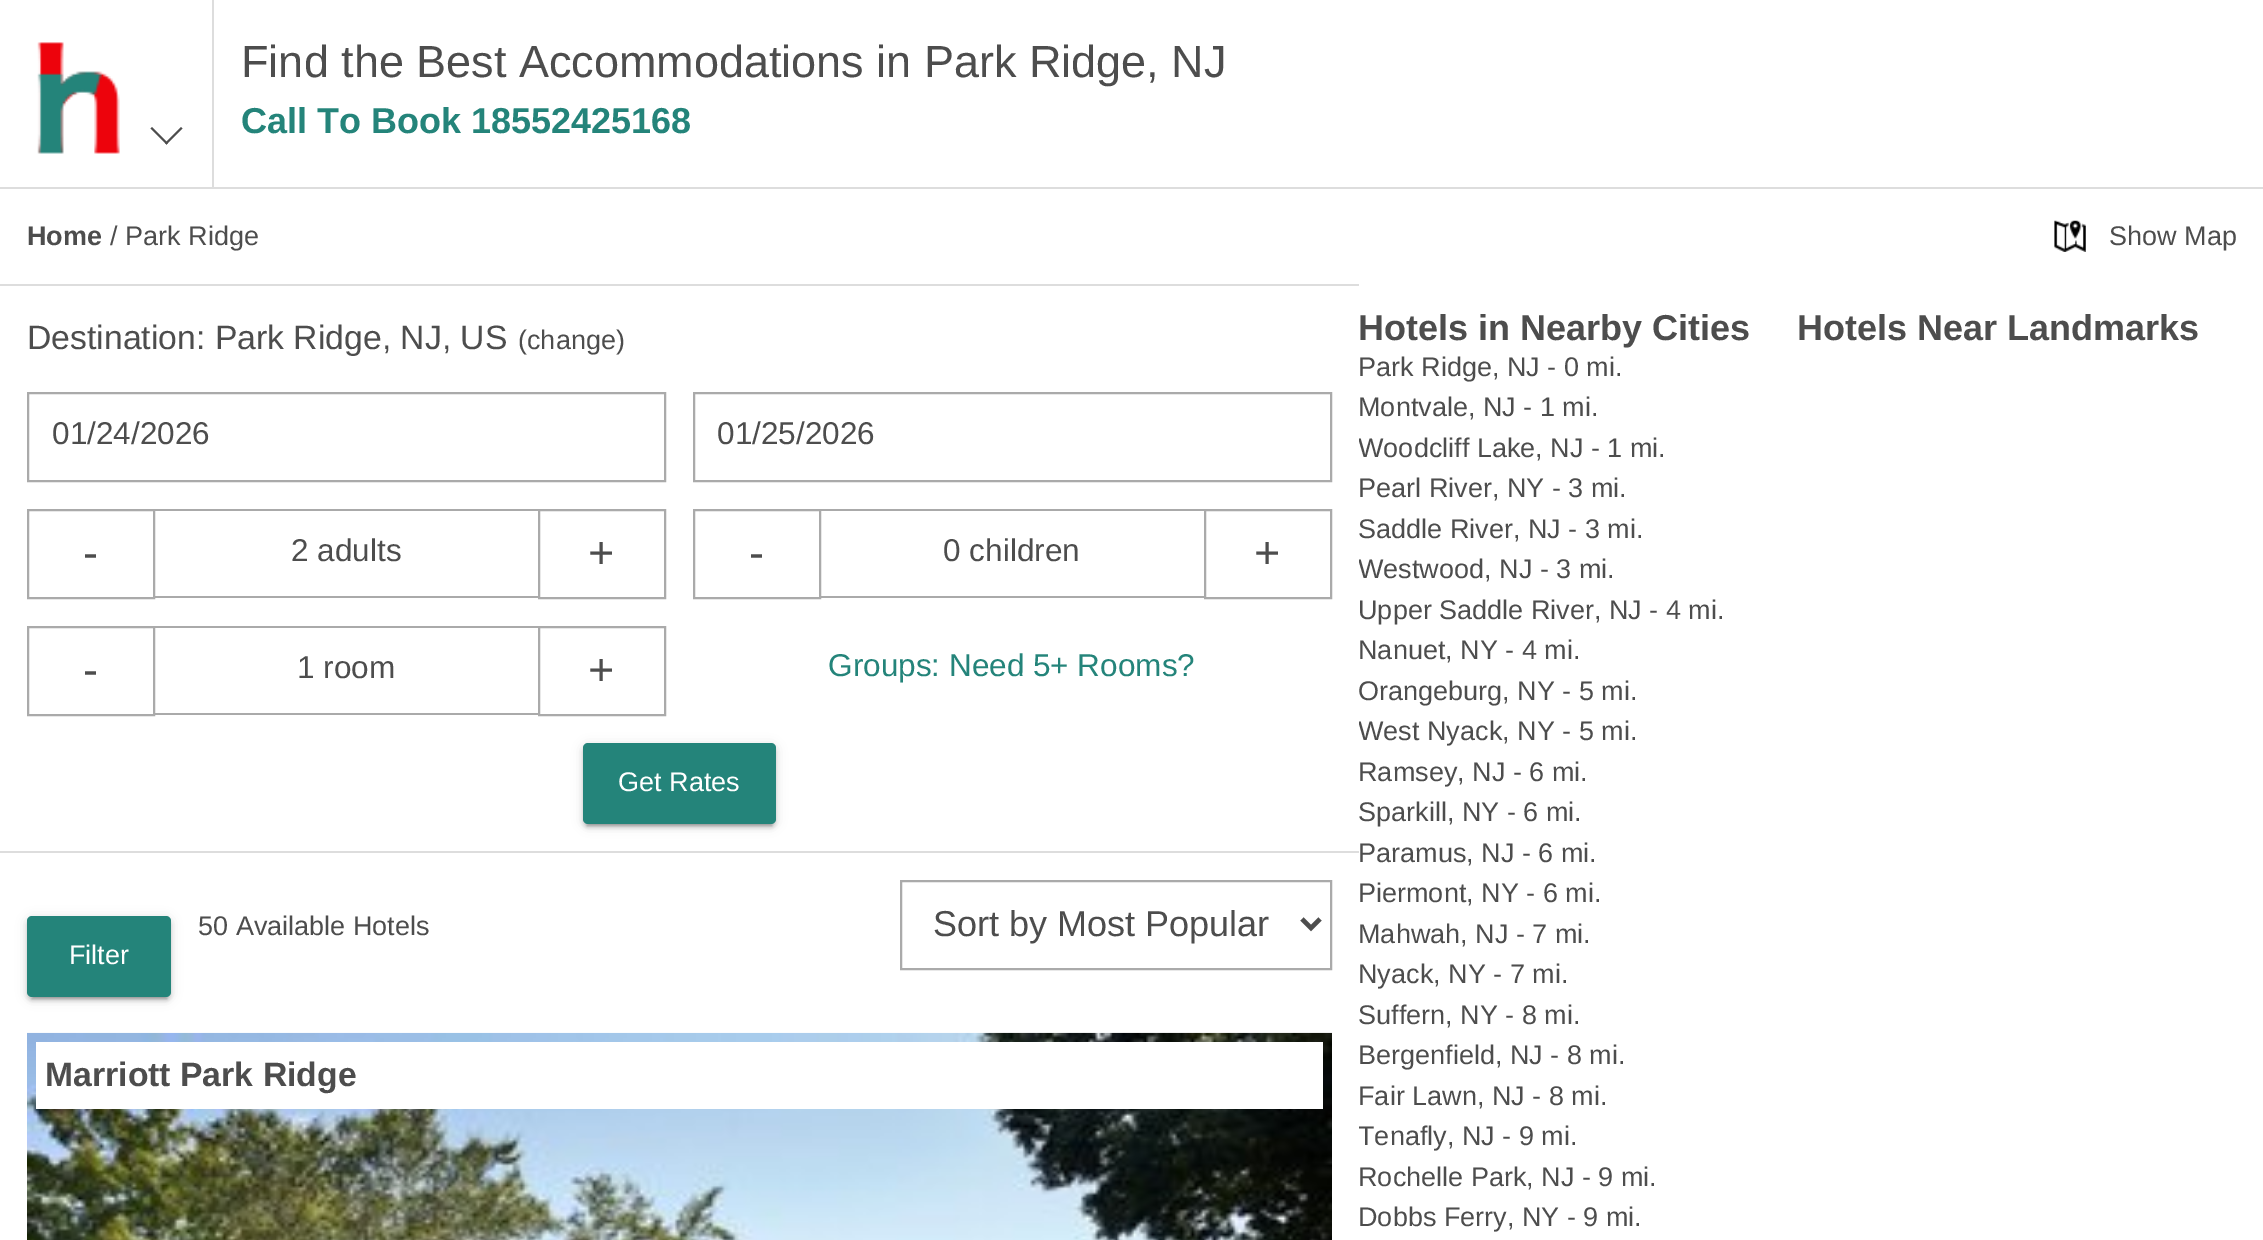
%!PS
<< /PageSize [2263 1240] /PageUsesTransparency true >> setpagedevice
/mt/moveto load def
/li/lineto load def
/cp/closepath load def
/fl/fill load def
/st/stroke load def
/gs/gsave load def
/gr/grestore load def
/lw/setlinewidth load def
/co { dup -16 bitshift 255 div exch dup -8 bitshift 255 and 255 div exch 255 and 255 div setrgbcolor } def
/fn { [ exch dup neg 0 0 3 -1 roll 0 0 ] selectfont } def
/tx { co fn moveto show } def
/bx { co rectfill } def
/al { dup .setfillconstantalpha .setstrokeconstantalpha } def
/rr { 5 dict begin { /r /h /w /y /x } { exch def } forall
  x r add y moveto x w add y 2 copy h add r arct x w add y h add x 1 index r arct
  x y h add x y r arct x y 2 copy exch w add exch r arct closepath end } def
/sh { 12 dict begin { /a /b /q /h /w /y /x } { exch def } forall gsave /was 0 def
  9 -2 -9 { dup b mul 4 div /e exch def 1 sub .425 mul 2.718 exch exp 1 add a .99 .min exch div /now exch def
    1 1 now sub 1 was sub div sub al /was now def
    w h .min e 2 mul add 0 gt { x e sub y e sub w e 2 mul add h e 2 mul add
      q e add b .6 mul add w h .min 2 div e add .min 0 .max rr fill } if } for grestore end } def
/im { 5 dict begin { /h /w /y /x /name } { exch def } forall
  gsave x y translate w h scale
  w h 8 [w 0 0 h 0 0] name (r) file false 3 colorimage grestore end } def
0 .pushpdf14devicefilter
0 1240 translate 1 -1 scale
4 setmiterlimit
0 0 2263 1240 16#FFFFFF bx
0 187 2263 2 16#DDDDDD bx
212 0 2 187 16#DDDDDD bx
(media/1.raw) 37 42 83 112 im
16#4D4D4D co
182.5 128.5 mt 166.5 144.5 li 165 143 li 181 127 li cp fl
168 143 mt 166.5 144.5 li 150.5 128.5 li 152 127 li cp fl
0 284 1359 2 16#DDDDDD bx
0 851 1359 2 16#DDDDDD bx
16#AAAAAA co
2 lw
28 393 637 88 rectstroke
694 393 637 88 rectstroke
28 510 126 88 rectstroke
155 509 383 2 16#AAAAAA bx
155 596 383 2 16#AAAAAA bx
539 510 126 88 rectstroke
694 510 126 88 rectstroke
821 509 383 2 16#AAAAAA bx
821 596 383 2 16#AAAAAA bx
1205 510 126 88 rectstroke
28 627 126 88 rectstroke
155 626 383 2 16#AAAAAA bx
155 713 383 2 16#AAAAAA bx
539 627 126 88 rectstroke
16#000000 co
583 745 193 81 5 5.5 .12 sh
587 754 185 72 0 1 .2 sh
583 747 193 81 5 2 .14 sh
16#24847A co
583 743 193 81 5 rr fl
16#AAAAAA co
901 881 430 88 rectstroke
16#4D4D4D co
4.5 lw
1302 919 mt 1311 928 li 1320 919 li st
16#000000 co
27 918 144 81 5 5.5 .12 sh
32 927 135 72 0 1 .2 sh
27 920 144 81 5 2 .14 sh
16#24847A co
27 916 144 81 5 rr fl
(media/2.raw) 27 1032 1305 208 im
36 1042 1287 67 16#FFFFFF bx
(media/3.raw) 2054 220 32 32 im
(Find the Best Accommodations in Park Ridge, NJ) 241 77 /LiberationSans-Regular 45 16#4D4D4D tx
(Call To Book 18552425168) 241 133 /LiberationSans-Bold 36 16#24847A tx
(Home) 27 245 /LiberationSans-Bold 27 16#4D4D4D tx
(/ Park Ridge) 110 245 /LiberationSans-Regular 27 16#4D4D4D tx
(Destination: Park Ridge, NJ, US) 27 349 /LiberationSans-Regular 33.75 16#4D4D4D tx
(\(change\)) 518 349 /LiberationSans-Regular 27 16#4D4D4D tx
(01/24/2026) 52 444 /LiberationSans-Regular 31.5 16#4D4D4D tx
(01/25/2026) 717 444 /LiberationSans-Regular 31.5 16#4D4D4D tx
(-) 83 568 /LiberationSans-Regular 45 16#4D4D4D tx
(2 adults) 291 561 /LiberationSans-Regular 31.5 16#4D4D4D tx
(+) 588 568 /LiberationSans-Regular 45 16#4D4D4D tx
(-) 749 568 /LiberationSans-Regular 45 16#4D4D4D tx
(0 children) 943 561 /LiberationSans-Regular 31.5 16#4D4D4D tx
(+) 1254 568 /LiberationSans-Regular 45 16#4D4D4D tx
(-) 83 685 /LiberationSans-Regular 45 16#4D4D4D tx
(1 room) 297 678 /LiberationSans-Regular 31.5 16#4D4D4D tx
(+) 588 685 /LiberationSans-Regular 45 16#4D4D4D tx
(Groups: Need 5+ Rooms?) 828 676 /LiberationSans-Regular 31.5 16#24847A tx
(Get Rates) 618 791 /LiberationSans-Regular 27 16#FFFFFF tx
(50 Available Hotels) 198 935 /LiberationSans-Regular 27 16#4D4D4D tx
(Sort by Most Popular) 933 936 /LiberationSans-Regular 36 16#4D4D4D tx
(Filter) 69 964 /LiberationSans-Regular 27 16#FFFFFF tx
(Marriott Park Ridge) 45 1086 /LiberationSans-Bold 33.75 16#4D4D4D tx
(Show Map) 2109 245 /LiberationSans-Regular 27 16#4D4D4D tx
(Hotels in Nearby Cities) 1358 340 /LiberationSans-Bold 36 16#4D4D4D tx
(Park Ridge, NJ - 0 mi.) 1358 376 /LiberationSans-Regular 27 16#4D4D4D tx
(Montvale, NJ - 1 mi.) 1358 416 /LiberationSans-Regular 27 16#4D4D4D tx
gs
1359 311 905 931 rectclip
(Woodcliff Lake, NJ - 1 mi.) 1358 457 /LiberationSans-Regular 27 16#4D4D4D tx
gr
(Pearl River, NY - 3 mi.) 1358 497 /LiberationSans-Regular 27 16#4D4D4D tx
(Saddle River, NJ - 3 mi.) 1358 538 /LiberationSans-Regular 27 16#4D4D4D tx
gs
1359 311 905 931 rectclip
(Westwood, NJ - 3 mi.) 1358 578 /LiberationSans-Regular 27 16#4D4D4D tx
gr
(Upper Saddle River, NJ - 4 mi.) 1358 619 /LiberationSans-Regular 27 16#4D4D4D tx
(Nanuet, NY - 4 mi.) 1358 659 /LiberationSans-Regular 27 16#4D4D4D tx
(Orangeburg, NY - 5 mi.) 1358 700 /LiberationSans-Regular 27 16#4D4D4D tx
gs
1359 311 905 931 rectclip
(West Nyack, NY - 5 mi.) 1358 740 /LiberationSans-Regular 27 16#4D4D4D tx
gr
(Ramsey, NJ - 6 mi.) 1358 781 /LiberationSans-Regular 27 16#4D4D4D tx
(Sparkill, NY - 6 mi.) 1358 821 /LiberationSans-Regular 27 16#4D4D4D tx
(Paramus, NJ - 6 mi.) 1358 862 /LiberationSans-Regular 27 16#4D4D4D tx
(Piermont, NY - 6 mi.) 1358 902 /LiberationSans-Regular 27 16#4D4D4D tx
(Mahwah, NJ - 7 mi.) 1358 943 /LiberationSans-Regular 27 16#4D4D4D tx
(Nyack, NY - 7 mi.) 1358 983 /LiberationSans-Regular 27 16#4D4D4D tx
(Suffern, NY - 8 mi.) 1358 1024 /LiberationSans-Regular 27 16#4D4D4D tx
(Bergenfield, NJ - 8 mi.) 1358 1064 /LiberationSans-Regular 27 16#4D4D4D tx
(Fair Lawn, NJ - 8 mi.) 1358 1105 /LiberationSans-Regular 27 16#4D4D4D tx
gs
1359 311 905 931 rectclip
(Tenafly, NJ - 9 mi.) 1358 1145 /LiberationSans-Regular 27 16#4D4D4D tx
gr
(Rochelle Park, NJ - 9 mi.) 1358 1186 /LiberationSans-Regular 27 16#4D4D4D tx
(Dobbs Ferry, NY - 9 mi.) 1358 1226 /LiberationSans-Regular 27 16#4D4D4D tx
(Hotels Near Landmarks) 1797 340 /LiberationSans-Bold 36 16#4D4D4D tx
.poppdf14devicefilter showpage
